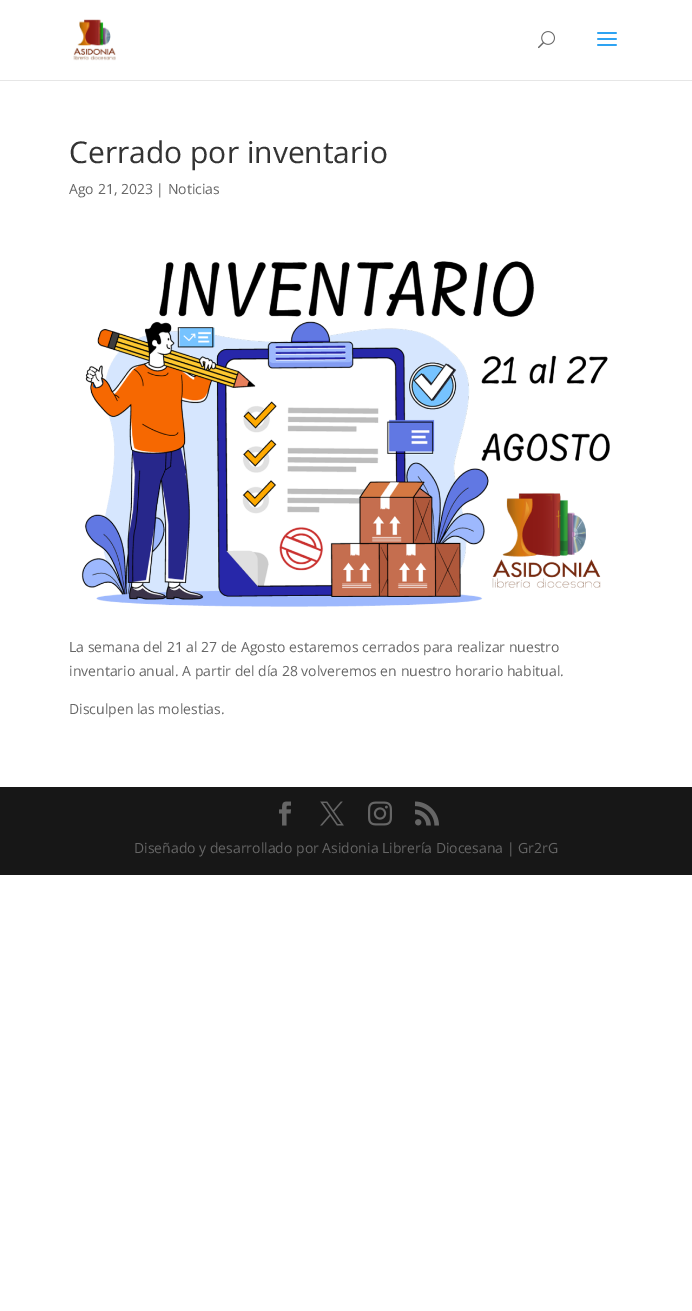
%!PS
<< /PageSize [692 1311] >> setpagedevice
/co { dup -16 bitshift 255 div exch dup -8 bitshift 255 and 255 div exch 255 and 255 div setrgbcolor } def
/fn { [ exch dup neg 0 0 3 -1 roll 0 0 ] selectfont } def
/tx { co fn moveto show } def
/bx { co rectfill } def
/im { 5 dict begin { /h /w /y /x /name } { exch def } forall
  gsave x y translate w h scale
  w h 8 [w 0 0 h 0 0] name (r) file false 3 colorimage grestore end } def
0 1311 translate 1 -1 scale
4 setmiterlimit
0 0 692 1311 16#FFFFFF bx
0 80 692 1 16#E6E6E6 bx
(media/1.raw) 73 19 43 42 im
(media/2.raw) 538 31 17 18 im
(media/3.raw) 597 32 20 14 im
(media/4.raw) 81 260 529 347 im
0 787 692 88 16#171717 bx
(media/5.raw) 279 801 12 25 im
(media/6.raw) 320 801 24 25 im
(media/7.raw) 368 801 24 25 im
(media/8.raw) 415 801 24 25 im
(Cerrado por inventario) 69 163 /OpenSans-Regular 30 16#333333 tx
(Ago 21, 2023 | Noticias) 69 194 /OpenSans-Regular 14 16#666666 tx
(La semana del 21 al 27 de Agosto estaremos cerrados para realizar nuestro) 69 652 /OpenSans-Regular 14 16#666666 tx
(inventario anual. A partir del día 28 volveremos en nuestro horario habitual.) 69 676 /OpenSans-Regular 14 16#666666 tx
(Disculpen las molestias.) 69 714 /OpenSans-Regular 14 16#666666 tx
(Diseñado y desarrollado por Asidonia Librería Diocesana | Gr2rG) 134 853 /OpenSans-Regular 14 16#666666 tx
showpage
